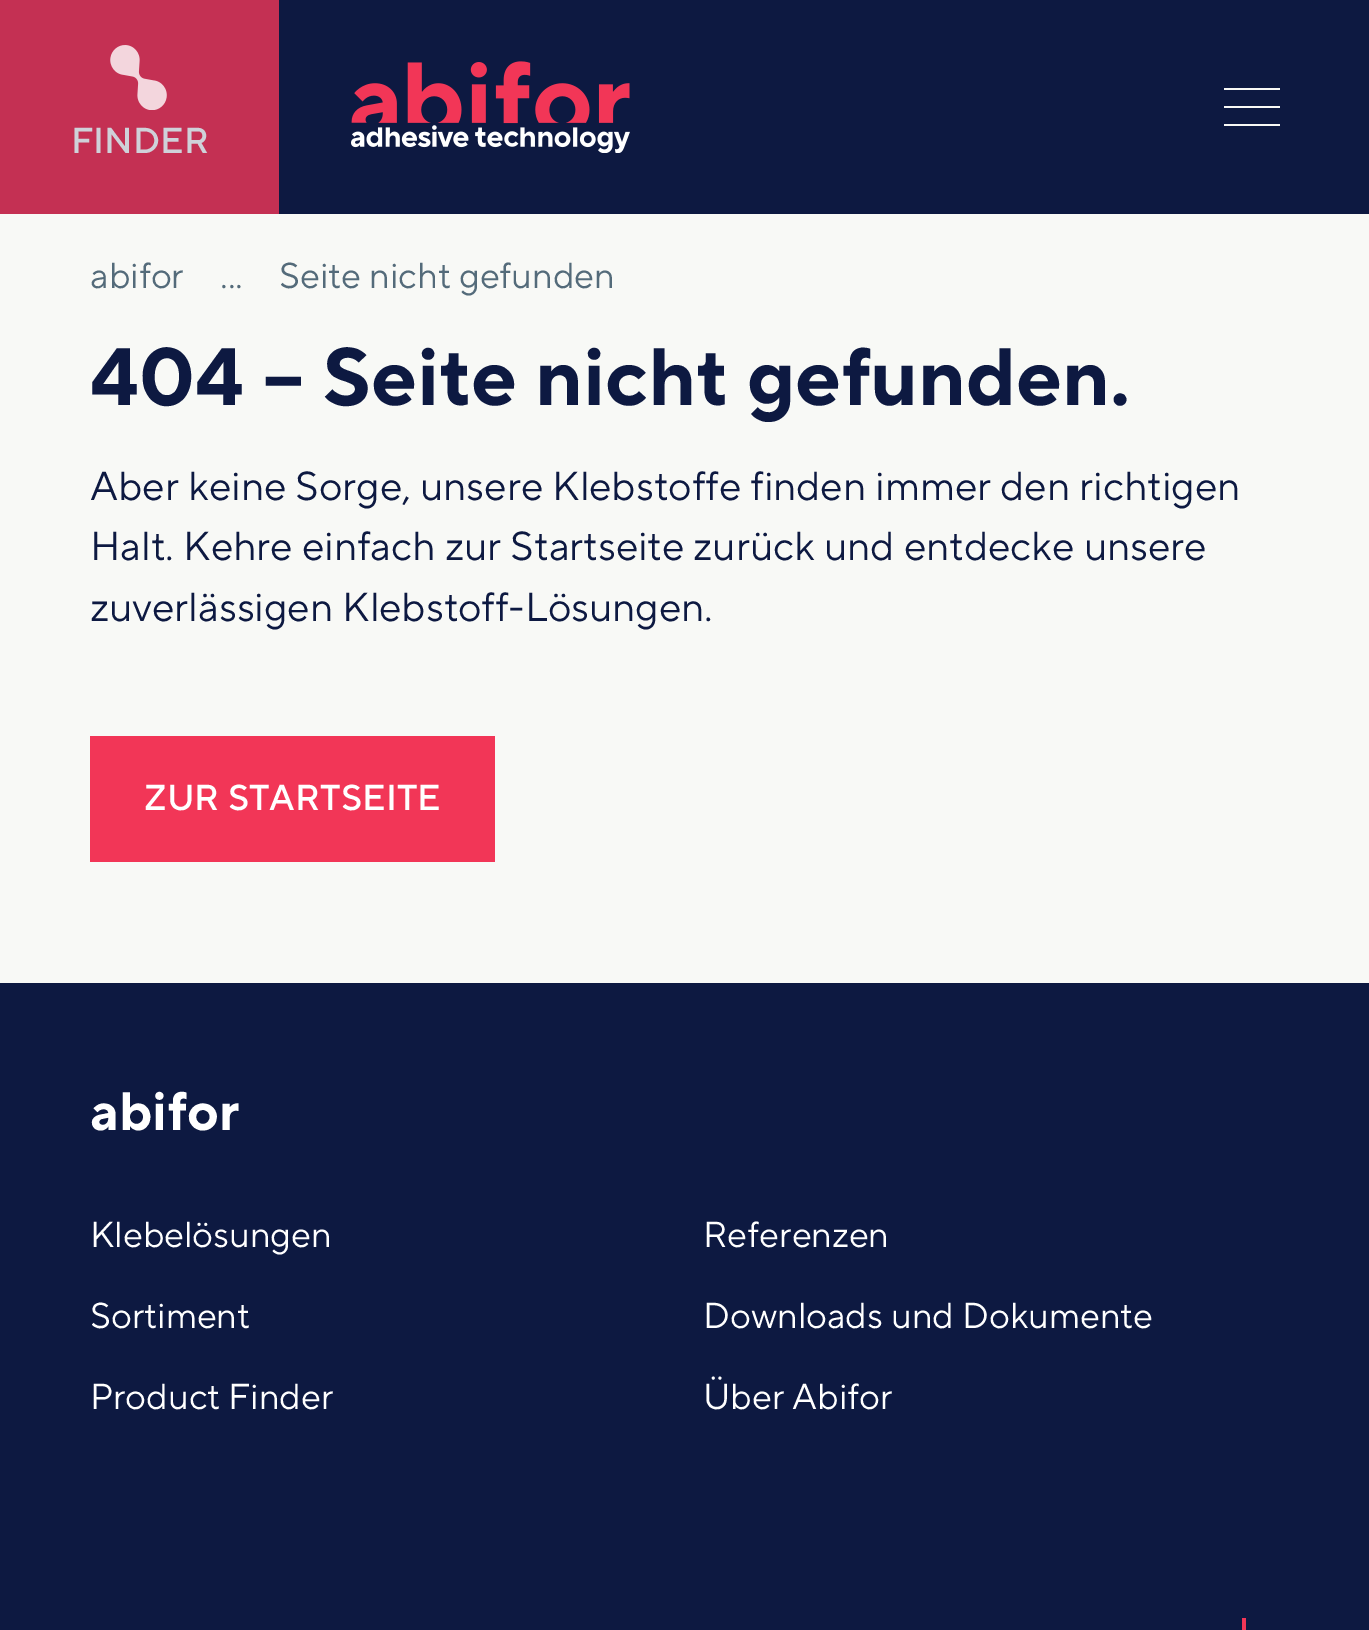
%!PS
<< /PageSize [1369 1630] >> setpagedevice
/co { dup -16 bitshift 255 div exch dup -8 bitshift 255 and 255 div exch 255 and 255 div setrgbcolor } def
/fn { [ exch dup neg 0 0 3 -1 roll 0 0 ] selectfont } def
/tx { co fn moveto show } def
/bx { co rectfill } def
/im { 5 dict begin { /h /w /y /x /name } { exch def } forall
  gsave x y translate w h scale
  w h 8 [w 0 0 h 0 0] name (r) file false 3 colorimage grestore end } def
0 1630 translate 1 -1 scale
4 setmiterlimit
0 0 1369 1630 16#F8F9F6 bx
279 0 1090 214 16#0D1941 bx
(media/1.raw) 351 61 279 92 im
1224 124 56 2 16#F8F9F6 bx
1224 106 56 2 16#F8F9F6 bx
1224 88 56 2 16#F8F9F6 bx
0 0 279 214 16#C43053 bx
(media/2.raw) 110 45 57 65 im
90 736 405 126 16#F23657 bx
0 983 1369 647 16#0D1941 bx
1242 1618 4 12 16#F23657 bx
(FINDER) 71 153 /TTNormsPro-Medium 36 16#CFD1D9 tx
(abifor) 90 288 /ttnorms-Regular 36 16#546B7A tx
(...) 220 288 /ttnorms-Regular 36 16#546B7A tx
(Seite nicht gefunden) 279 288 /ttnorms-Regular 36 16#546B7A tx
(404 – Seite nicht gefunden.) 90 405 /ttnorms-Bold 81 16#0D1941 tx
(Aber keine Sorge, unsere Klebstoffe finden immer den richtigen) 90 500 /ttnorms-Regular 40.5 16#0D1941 tx
(Halt. Kehre einfach zur Startseite zurück und entdecke unsere) 90 560 /ttnorms-Regular 40.5 16#0D1941 tx
(zuverlässigen Klebstoff-Lösungen.) 90 621 /ttnorms-Regular 40.5 16#0D1941 tx
(ZUR STARTSEITE) 144 810 /TTNormsPro-Medium 36 16#FFFFFF tx
(abifor) 90 1130 /ttnorms-Bold 54 16#FFFFFF tx
(Klebelösungen) 90 1247 /ttnorms-Regular 36 16#FFFFFF tx
(Referenzen) 703 1247 /ttnorms-Regular 36 16#FFFFFF tx
(Sortiment) 90 1328 /ttnorms-Regular 36 16#FFFFFF tx
(Downloads und Dokumente) 703 1328 /ttnorms-Regular 36 16#FFFFFF tx
(Product Finder) 90 1409 /ttnorms-Regular 36 16#FFFFFF tx
(Über Abifor) 703 1409 /ttnorms-Regular 36 16#FFFFFF tx
showpage
